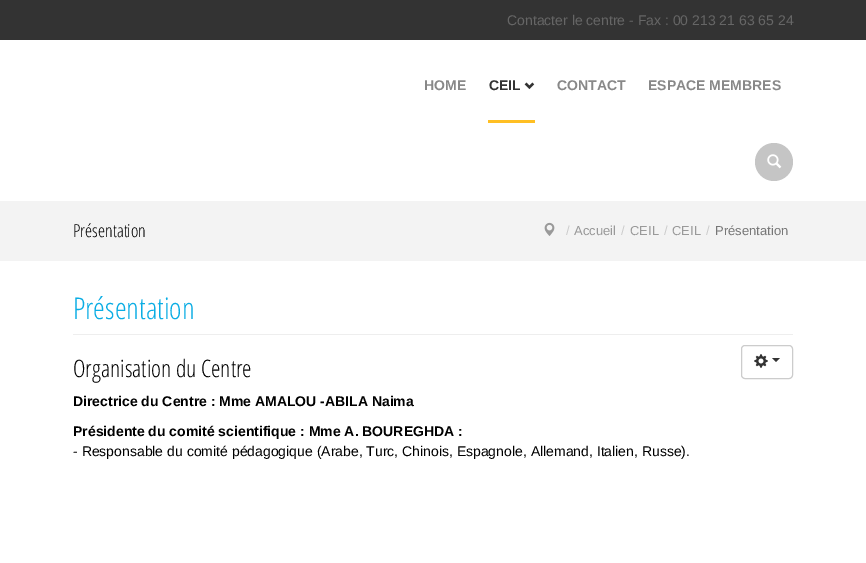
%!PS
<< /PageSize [866 563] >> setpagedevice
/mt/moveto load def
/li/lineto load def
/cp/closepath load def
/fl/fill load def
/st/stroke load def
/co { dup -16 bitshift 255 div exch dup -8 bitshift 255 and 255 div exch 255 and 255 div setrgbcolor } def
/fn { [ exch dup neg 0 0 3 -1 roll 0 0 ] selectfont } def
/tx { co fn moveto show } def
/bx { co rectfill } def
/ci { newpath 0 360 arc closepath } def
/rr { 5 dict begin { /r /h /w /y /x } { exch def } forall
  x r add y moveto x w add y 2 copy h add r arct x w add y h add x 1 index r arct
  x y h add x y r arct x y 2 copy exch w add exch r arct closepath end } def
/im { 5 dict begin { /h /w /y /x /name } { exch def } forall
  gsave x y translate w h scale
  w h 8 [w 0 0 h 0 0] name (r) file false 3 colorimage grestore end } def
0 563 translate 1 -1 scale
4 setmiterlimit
0 0 866 563 16#FFFFFF bx
0 0 866 40 16#333333 bx
488 120 47 3 16#FFBF23 bx
(media/1.raw) 524 82 11 8 im
16#C5C5C5 co
774 162 19 ci fl
(media/2.raw) 767 154 15 15 im
0 201 866 60 16#F3F3F3 bx
(media/3.raw) 544 222 11 14 im
73 334 720 1 16#EEEEEE bx
16#CCCCCC co
741.5 345.5 51 33 3.5 rr st
(media/4.raw) 754 354 14 14 im
16#333333 co
772 358 mt 780 358 li 776 362 li cp fl
(Contacter le centre - Fax : 00 213 21 63 65 24) 507 25 /LiberationSans-Regular 14 16#666666 tx
(HOME) 424 90 /LiberationSans-Bold 14 16#888888 tx
(CEIL) 489 90 /LiberationSans-Bold 14 16#333333 tx
(CONTACT) 557 90 /LiberationSans-Bold 14 16#888888 tx
(ESPACE MEMBRES) 648 90 /LiberationSans-Bold 14 16#888888 tx
(Présentation) 73 237 /OpenSansCondensed-Light 18 16#000000 tx
(/) 566 235 /LiberationSans-Regular 13 16#CCCCCC tx
(Accueil) 574 235 /LiberationSans-Regular 13 16#999999 tx
(/) 621 235 /LiberationSans-Regular 13 16#CCCCCC tx
(CEIL) 630 235 /LiberationSans-Regular 13 16#999999 tx
(/) 664 235 /LiberationSans-Regular 13 16#CCCCCC tx
(CEIL) 672 235 /LiberationSans-Regular 13 16#999999 tx
(/) 706 235 /LiberationSans-Regular 13 16#CCCCCC tx
(Présentation) 715 235 /LiberationSans-Regular 13 16#777777 tx
(Présentation) 73 319 /OpenSansCondensed-Light 30 16#0AADE4 tx
(Organisation du Centre) 73 377 /OpenSansCondensed-Light 24 16#000000 tx
(Directrice du Centre : Mme AMALOU -ABILA Naima) 73 406 /LiberationSans-Bold 14 16#000000 tx
(Présidente du comité scientifique : Mme A. BOUREGHDA :) 73 436 /LiberationSans-Bold 14 16#000000 tx
(- Responsable du comité pédagogique \(Arabe, Turc, Chinois, Espagnole, Allemand, Italien, Russe\).) 73 456 /LiberationSans-Regular 14 16#000000 tx
showpage
